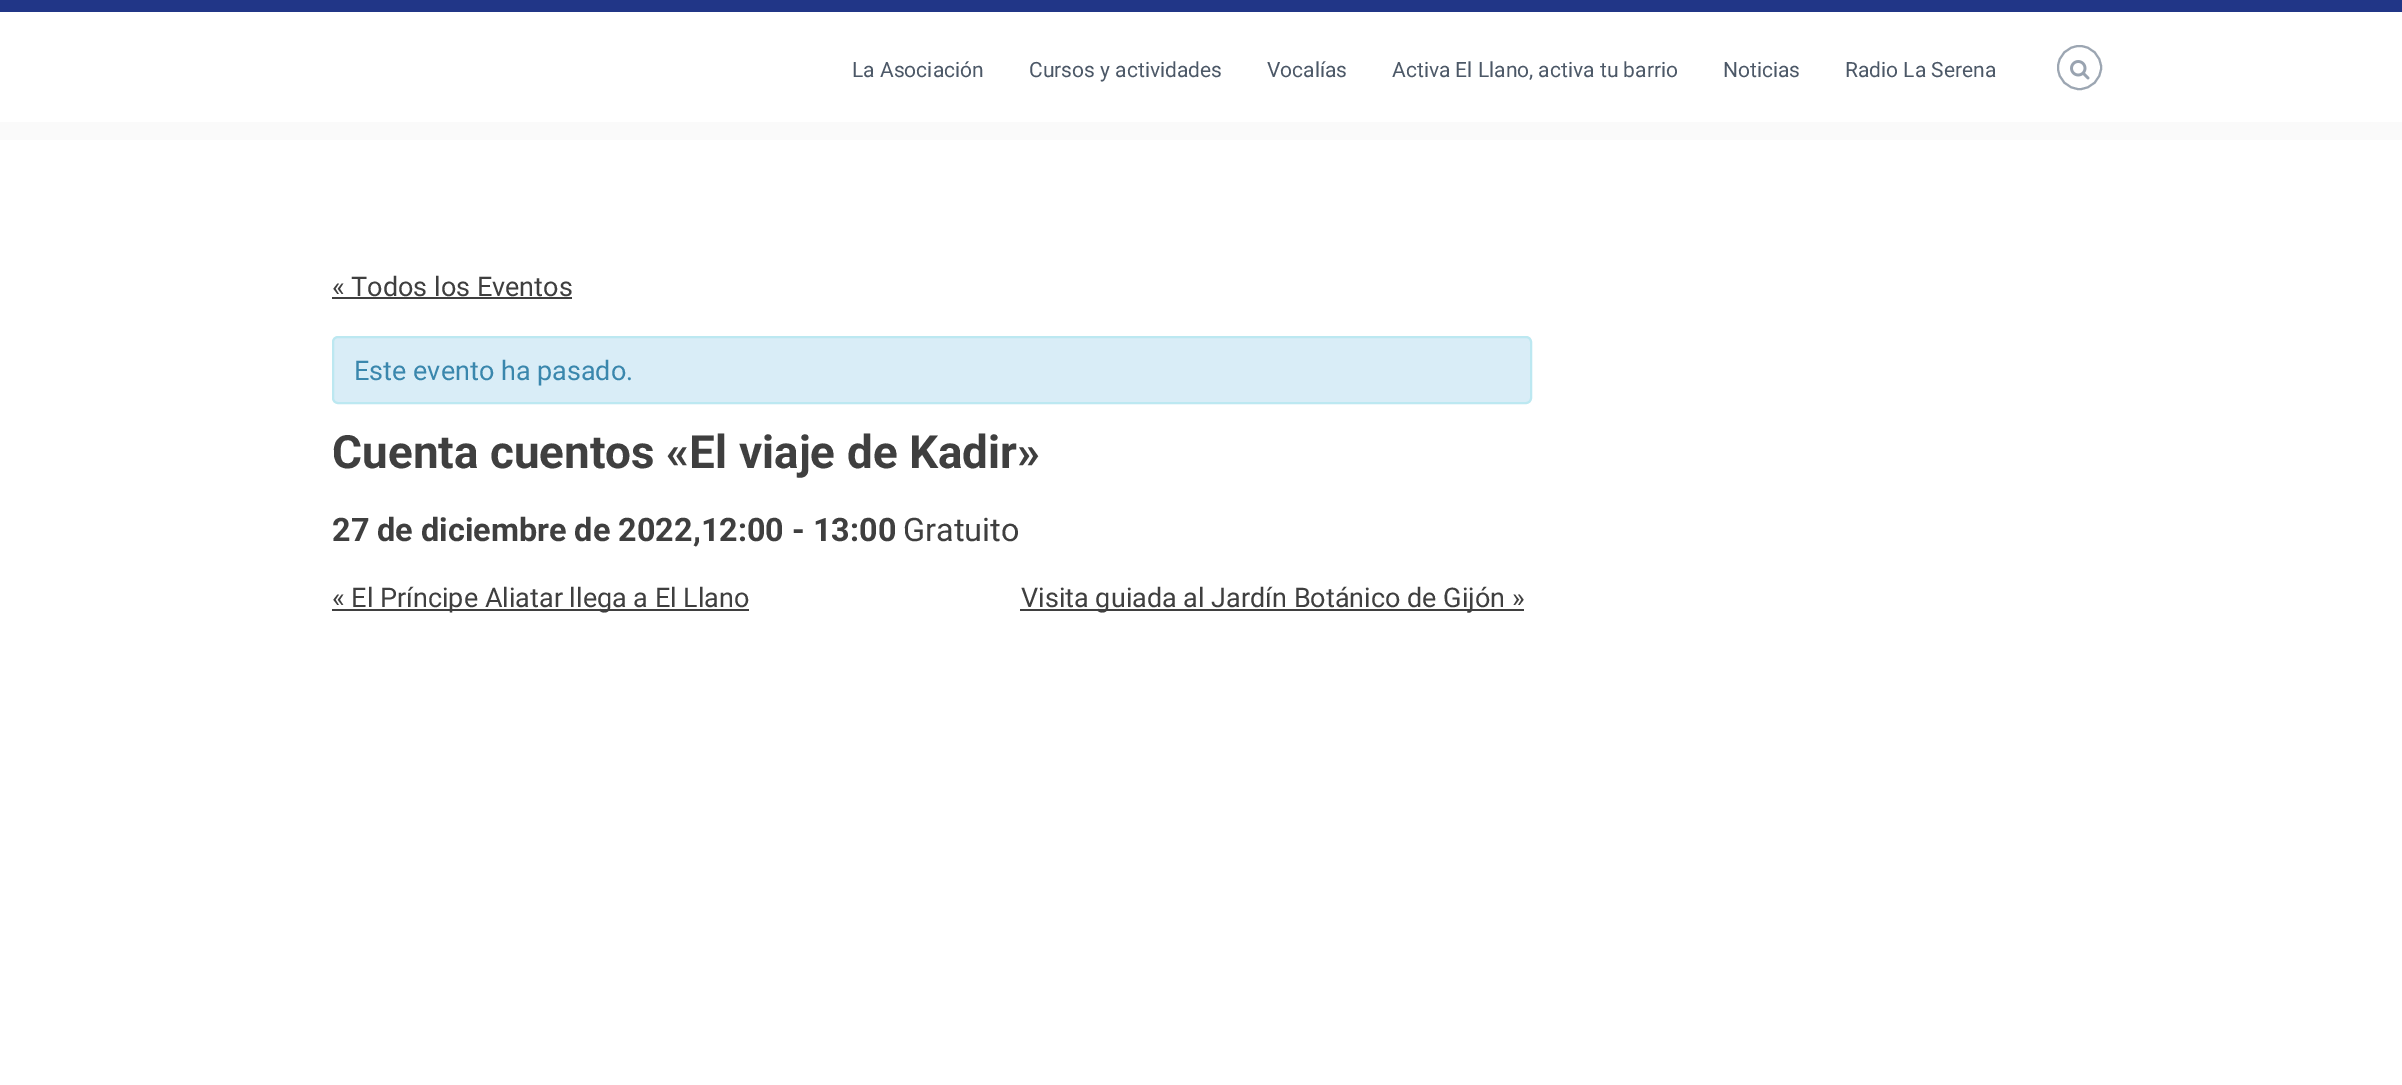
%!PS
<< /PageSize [2402 1085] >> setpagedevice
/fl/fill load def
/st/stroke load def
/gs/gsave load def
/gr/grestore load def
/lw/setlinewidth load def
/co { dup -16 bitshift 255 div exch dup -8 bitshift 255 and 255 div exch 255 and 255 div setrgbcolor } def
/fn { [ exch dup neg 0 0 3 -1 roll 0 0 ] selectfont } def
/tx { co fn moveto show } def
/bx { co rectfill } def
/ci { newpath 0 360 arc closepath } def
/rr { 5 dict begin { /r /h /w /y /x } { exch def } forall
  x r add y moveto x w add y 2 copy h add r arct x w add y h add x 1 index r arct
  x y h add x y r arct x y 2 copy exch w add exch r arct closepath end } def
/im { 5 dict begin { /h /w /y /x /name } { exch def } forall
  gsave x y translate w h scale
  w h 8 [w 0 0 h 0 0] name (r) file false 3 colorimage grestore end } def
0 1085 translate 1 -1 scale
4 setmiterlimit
0 0 2402 1085 16#FFFFFF bx
0 0 2402 12 16#213687 bx
16#9CA6B2 co
2 lw
2079.5 67.5 21.5 ci st
(media/1.raw) 2070 60 20 20 im
0 122 2402 18 16#FAFAFA bx
332 297 240 2 16#3F3F3F bx
16#D9EDF7 co
333 337 1198 66 5 rr gs fl gr
16#BCE8F1 co
st
332 609 417 2 16#3F3F3F bx
1020 609 504 2 16#3F3F3F bx
(La Asociación) 852 77 /Roboto-Regular 21 16#4C5867 tx
(Cursos y actividades) 1029 77 /Roboto-Regular 21 16#4C5867 tx
(Vocalías) 1267 77 /Roboto-Regular 21 16#4C5867 tx
(Activa El Llano, activa tu barrio) 1392 77 /Roboto-Regular 21 16#4C5867 tx
(Noticias) 1723 77 /Roboto-Regular 21 16#4C5867 tx
(Radio La Serena) 1845 77 /Roboto-Regular 21 16#4C5867 tx
(« Todos los Eventos) 332 296 /Roboto-Regular 27 16#3F3F3F tx
(Este evento ha pasado.) 354 380 /Roboto-Regular 27 16#3A87AD tx
(Cuenta cuentos «El viaje de Kadir») 332 468 /Roboto-Bold 45.9 16#3F3F3F tx
(27 de diciembre de 2022,12:00 - 13:00) 332 541 /Roboto-Bold 32.4 16#3F3F3F tx
(Gratuito) 903 541 /Roboto-Regular 32.4 16#3F3F3F tx
(« El Príncipe Aliatar llega a El Llano) 332 607 /Roboto-Regular 27 16#3F3F3F tx
(Visita guiada al Jardín Botánico de Gijón ») 1021 607 /Roboto-Regular 27 16#3F3F3F tx
showpage
